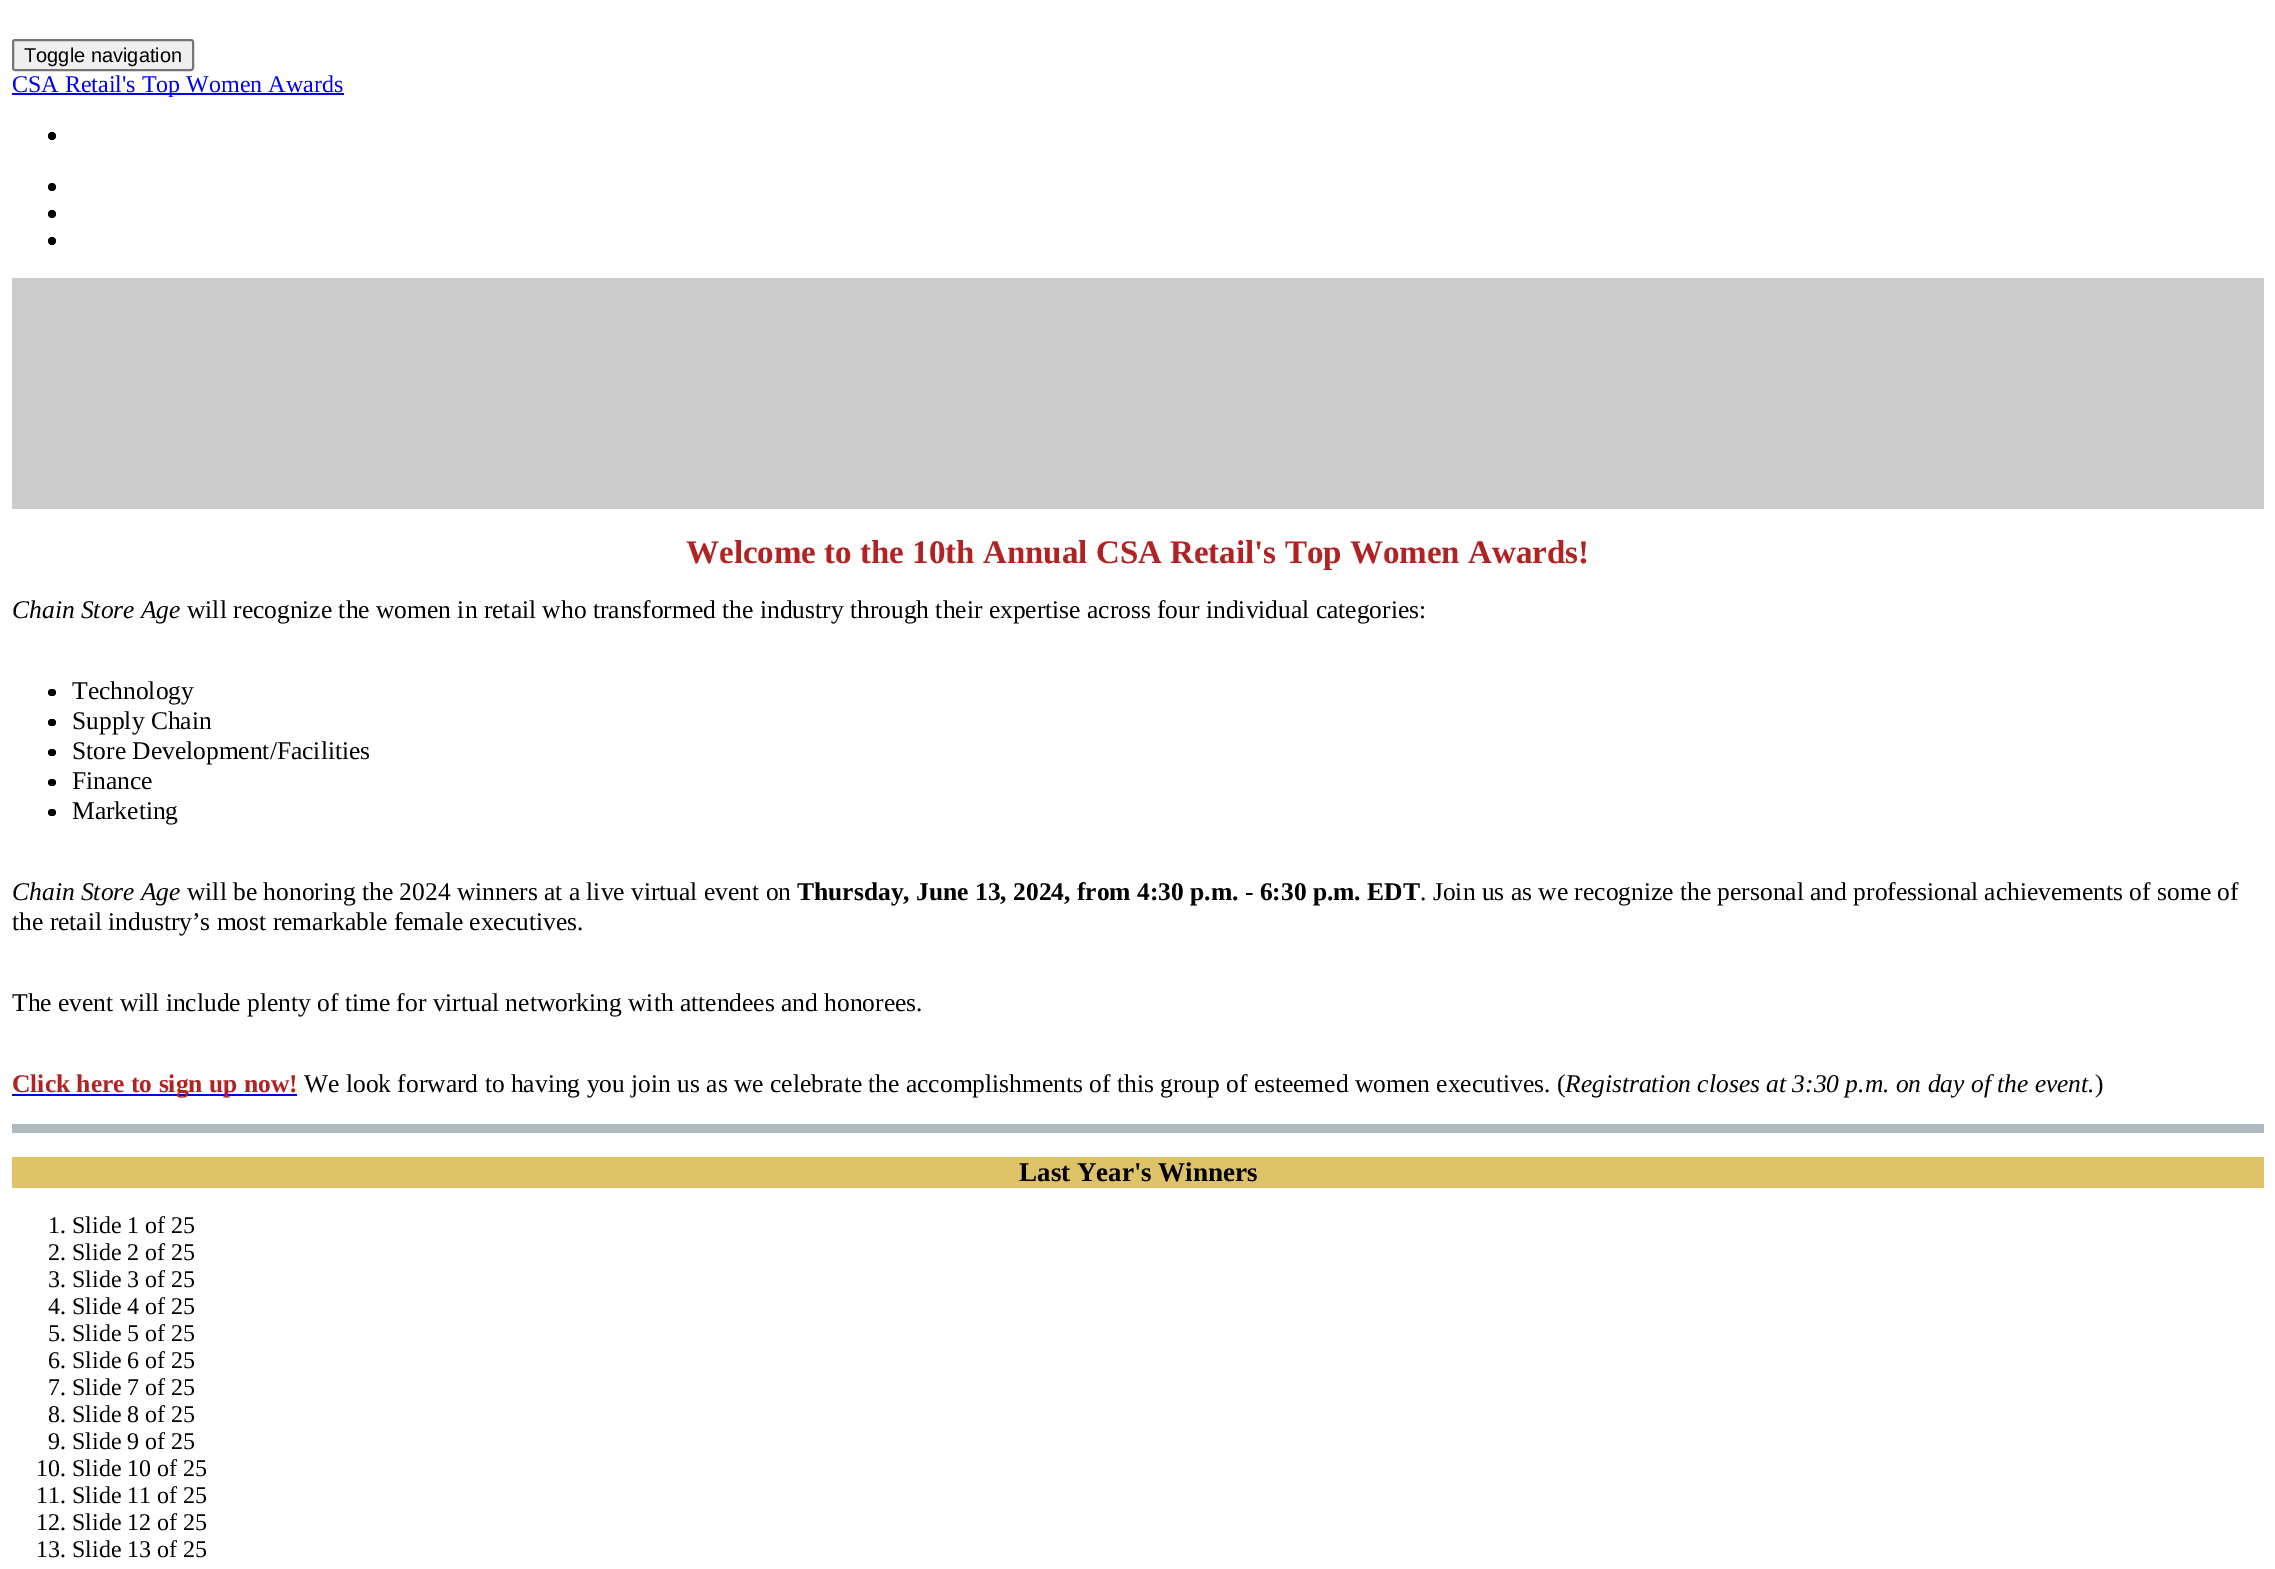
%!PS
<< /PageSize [2275 1569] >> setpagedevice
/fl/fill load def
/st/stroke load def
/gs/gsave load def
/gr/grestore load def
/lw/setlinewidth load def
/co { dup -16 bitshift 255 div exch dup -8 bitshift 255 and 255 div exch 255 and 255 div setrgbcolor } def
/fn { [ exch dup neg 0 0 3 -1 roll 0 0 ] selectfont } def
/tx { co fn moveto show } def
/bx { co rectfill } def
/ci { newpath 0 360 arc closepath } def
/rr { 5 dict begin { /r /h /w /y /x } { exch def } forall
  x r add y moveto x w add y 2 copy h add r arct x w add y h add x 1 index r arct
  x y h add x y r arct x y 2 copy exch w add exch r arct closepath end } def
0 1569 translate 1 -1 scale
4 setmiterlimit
0 0 2275 1569 16#FFFFFF bx
16#EFEFEF co
13 40 180 30 2 rr gs fl gr
16#767676 co
2 lw
st
12 93 332 2 16#0000EE bx
16#000000 co
52 136 4 ci fl
52 187 4 ci fl
52 214 4 ci fl
52 241 4 ci fl
12 278 2252 231 16#CCCCCC bx
16#000000 co
48 689 8 7 3.5 rr fl
48 719 8 7 3.5 rr fl
48 749 8 7 3.5 rr fl
48 779 8 7 3.5 rr fl
48 809 8 7 3.5 rr fl
12 1094 285 2 16#0000EE bx
12 1124 2252 9 16#AEB9C1 bx
12 1157 2252 31 16#DEC267 bx
(Toggle navigation) 24 62 /LiberationSans-Regular 20 16#000000 tx
(CSA Retail's Top Women Awards) 12 92 /LiberationSerif-Regular 24 16#0000EE tx
(Welcome to the 10th Annual CSA Retail's Top Women Awards!) 686 563 /LiberationSerif-Bold 33 16#B22222 tx
(Chain Store Age) 12 618 /LiberationSerif-Italic 25.5 16#000000 tx
(will recognize the women in retail who transformed the industry through their expertise across four individual categories:) 187 618 /LiberationSerif-Regular 25.5 16#000000 tx
(Technology) 72 699 /LiberationSerif-Regular 25.5 16#000000 tx
(Supply Chain) 72 729 /LiberationSerif-Regular 25.5 16#000000 tx
(Store Development/Facilities) 72 759 /LiberationSerif-Regular 25.5 16#000000 tx
(Finance) 72 789 /LiberationSerif-Regular 25.5 16#000000 tx
(Marketing) 72 819 /LiberationSerif-Regular 25.5 16#000000 tx
(Chain Store Age) 12 900 /LiberationSerif-Italic 25.5 16#000000 tx
(will be honoring the 2024 winners at a live virtual event on) 187 900 /LiberationSerif-Regular 25.5 16#000000 tx
(Thursday, June 13, 2024, from 4:30 p.m. - 6:30 p.m. EDT) 797 900 /LiberationSerif-Bold 25.5 16#000000 tx
(. Join us as we recognize the personal and professional achievements of some of) 1420 900 /LiberationSerif-Regular 25.5 16#000000 tx
(the retail industry’s most remarkable female executives.) 12 930 /LiberationSerif-Regular 25.5 16#000000 tx
(The event will include plenty of time for virtual networking with attendees and honorees.) 12 1011 /LiberationSerif-Regular 25.5 16#000000 tx
(Click here to sign up now!) 12 1092 /LiberationSerif-Bold 25.5 16#B22222 tx
(We look forward to having you join us as we celebrate the accomplishments of this group of esteemed women executives. \() 304 1092 /LiberationSerif-Regular 25.5 16#000000 tx
(Registration closes at 3:30 p.m. on day of the event.) 1565 1092 /LiberationSerif-Italic 25.5 16#000000 tx
(\)) 2095 1092 /LiberationSerif-Regular 25.5 16#000000 tx
(Last Year's Winners) 1019 1181 /LiberationSerif-Bold 27 16#000000 tx
(1. Slide 1 of 25) 48 1233 /LiberationSerif-Regular 24 16#000000 tx
(2. Slide 2 of 25) 48 1260 /LiberationSerif-Regular 24 16#000000 tx
(3. Slide 3 of 25) 48 1287 /LiberationSerif-Regular 24 16#000000 tx
(4. Slide 4 of 25) 48 1314 /LiberationSerif-Regular 24 16#000000 tx
(5. Slide 5 of 25) 48 1341 /LiberationSerif-Regular 24 16#000000 tx
(6. Slide 6 of 25) 48 1368 /LiberationSerif-Regular 24 16#000000 tx
(7. Slide 7 of 25) 48 1395 /LiberationSerif-Regular 24 16#000000 tx
(8. Slide 8 of 25) 48 1422 /LiberationSerif-Regular 24 16#000000 tx
(9. Slide 9 of 25) 48 1449 /LiberationSerif-Regular 24 16#000000 tx
(10. Slide 10 of 25) 36 1476 /LiberationSerif-Regular 24 16#000000 tx
(11. Slide 11 of 25) 36 1503 /LiberationSerif-Regular 24 16#000000 tx
(12. Slide 12 of 25) 36 1530 /LiberationSerif-Regular 24 16#000000 tx
(13. Slide 13 of 25) 36 1557 /LiberationSerif-Regular 24 16#000000 tx
showpage
